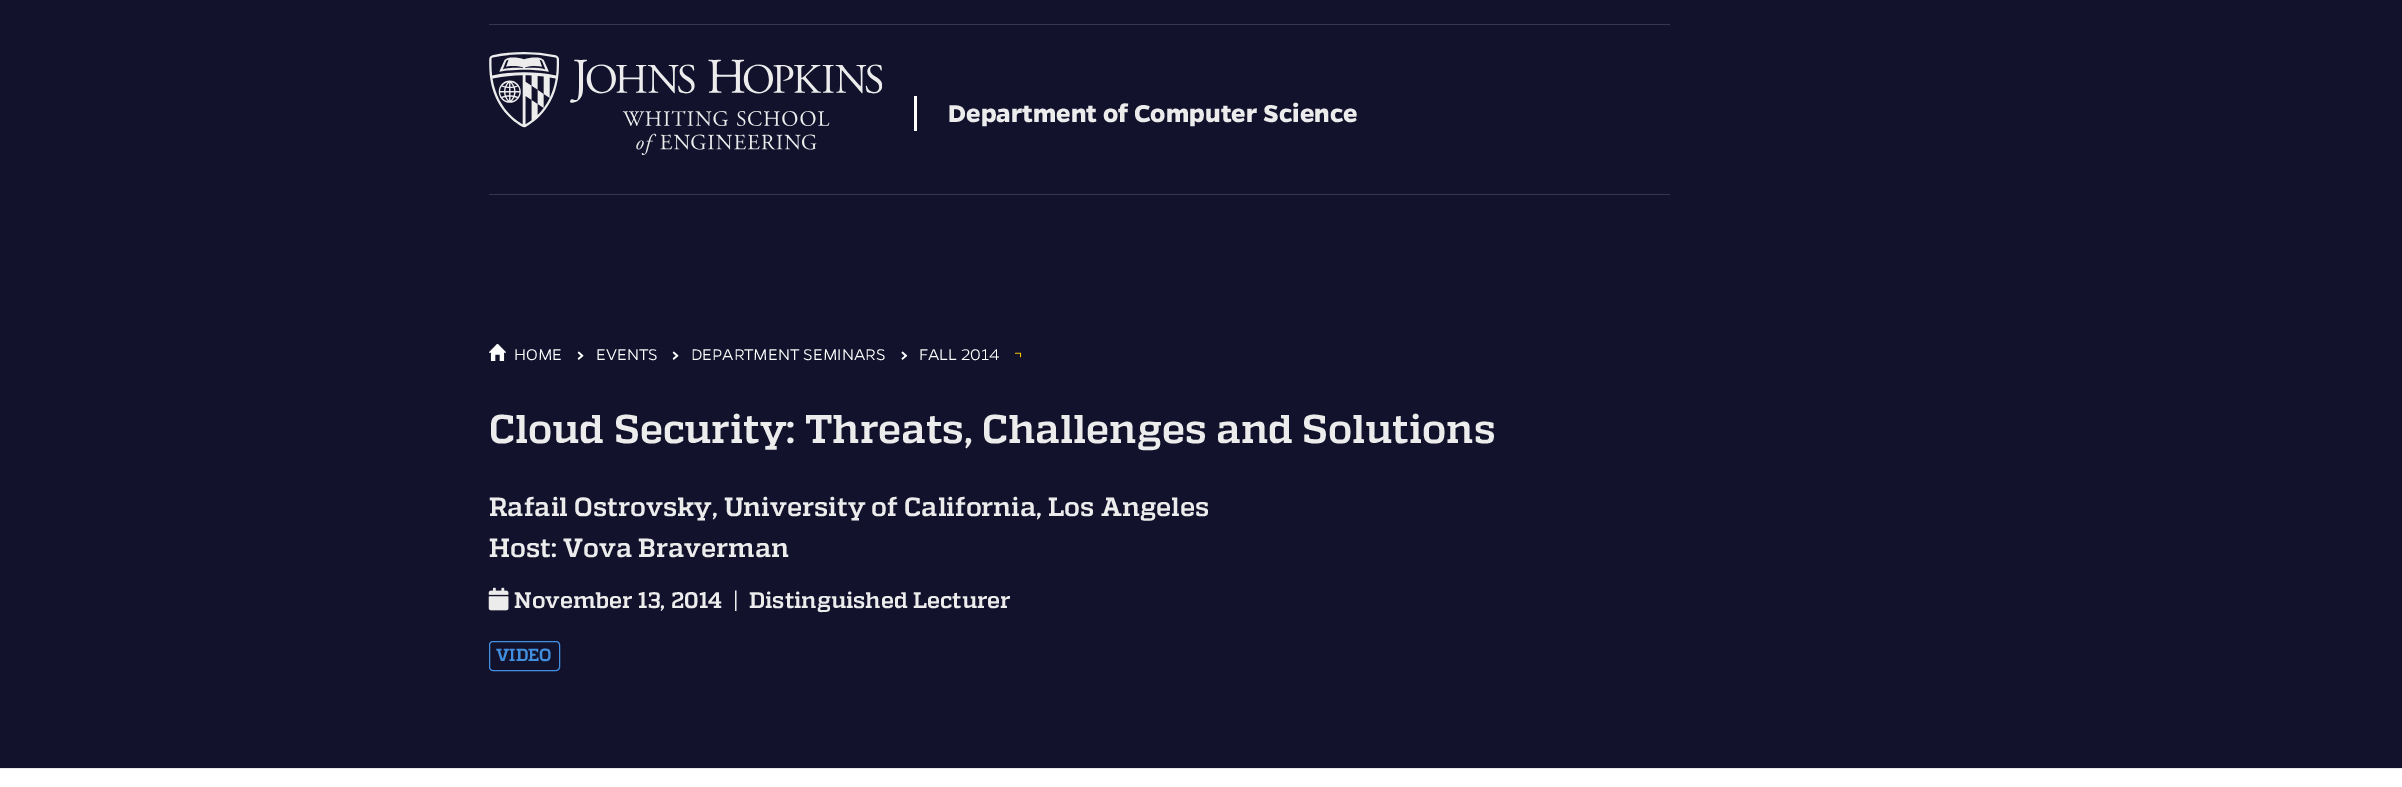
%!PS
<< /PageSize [2402 787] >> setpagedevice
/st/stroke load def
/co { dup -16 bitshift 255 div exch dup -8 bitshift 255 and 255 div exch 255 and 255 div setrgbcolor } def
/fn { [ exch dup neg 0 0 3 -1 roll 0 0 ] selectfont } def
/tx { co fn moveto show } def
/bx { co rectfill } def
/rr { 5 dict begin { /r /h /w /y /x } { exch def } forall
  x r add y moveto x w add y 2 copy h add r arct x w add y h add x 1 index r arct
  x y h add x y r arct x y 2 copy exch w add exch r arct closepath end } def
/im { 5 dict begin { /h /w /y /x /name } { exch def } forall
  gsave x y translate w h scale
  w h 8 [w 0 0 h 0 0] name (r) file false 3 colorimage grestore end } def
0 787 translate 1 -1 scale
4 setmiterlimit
0 0 2402 787 16#FFFFFF bx
0 0 2402 768 16#12122D bx
0 768 2402 1 16#EAEAEA bx
489 24 1181 1 16#36364D bx
489 194 1181 1 16#36364D bx
(media/1.raw) 489 52 394 103 im
914 96 3 35 16#FFFFFF bx
(media/2.raw) 489 344 17 17 im
(media/3.raw) 577 351 7 9 im
(media/3.raw) 672 351 7 9 im
(media/4.raw) 901 351 7 9 im
(media/5.raw) 1015 352 7 6 im
(media/6.raw) 488 587 21 24 im
16#418FDE co
489.5 641.5 70 29 3.5 rr st
(Department of Computer Science) 948 122 /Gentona-Bold 27.5 16#ECECEC tx
(HOME) 514 360 /Gentona-Light 17.5 16#FFFFFF tx
(EVENTS) 596 360 /Gentona-Light 17.5 16#FFFFFF tx
(DEPARTMENT SEMINARS) 691 360 /Gentona-Light 17.5 16#FFFFFF tx
(FALL 2014) 919 360 /Gentona-Light 17.5 16#FFFFFF tx
(Cloud Security: Threats, Challenges and Solutions) 489 443 /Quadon-Bold 40 16#ECECEC tx
(Rafail Ostrovsky, University of California, Los Angeles) 489 516 /Quadon-Bold 26.25 16#ECECEC tx
(Host: Vova Braverman) 489 557 /Quadon-Bold 26.25 16#ECECEC tx
(November 13, 2014) 514 608 /Quadon-Bold 22.5 16#ECECEC tx
(|) 733 608 /Quadon-Bold 22.5 16#ECECEC tx
(Distinguished Lecturer) 749 608 /Quadon-Bold 22.5 16#ECECEC tx
(VIDEO) 496 661 /Quadon-Bold 17.5 16#418FDE tx
showpage
